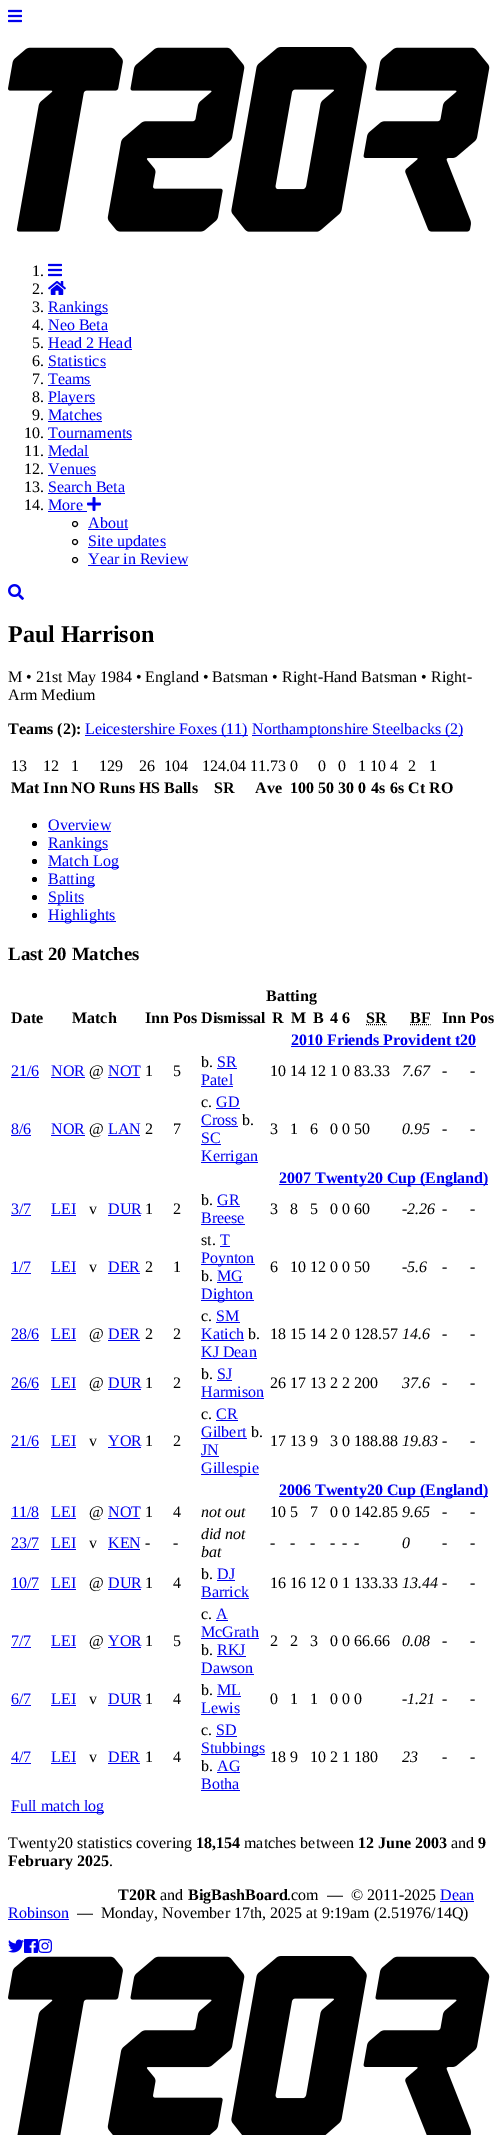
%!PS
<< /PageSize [499 2135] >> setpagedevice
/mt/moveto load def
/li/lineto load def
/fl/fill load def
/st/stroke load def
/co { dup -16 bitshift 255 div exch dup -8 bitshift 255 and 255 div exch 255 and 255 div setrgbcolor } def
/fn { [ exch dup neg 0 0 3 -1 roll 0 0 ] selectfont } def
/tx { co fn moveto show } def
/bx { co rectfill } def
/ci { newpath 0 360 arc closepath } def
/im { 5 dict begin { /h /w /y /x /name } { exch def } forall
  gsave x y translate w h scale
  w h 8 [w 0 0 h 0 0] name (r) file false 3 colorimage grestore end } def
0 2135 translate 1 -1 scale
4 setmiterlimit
0 0 499 2135 16#FFFFFF bx
(media/1.raw) 8 9 14 14 im
(media/2.raw) 8 47 482 185 im
(media/1.raw) 48 263 14 14 im
(media/3.raw) 48 281 18 14 im
48 313 60 1 16#0000EE bx
48 331 60 1 16#0000EE bx
48 349 84 1 16#0000EE bx
48 367 58 1 16#0000EE bx
48 385 43 1 16#0000EE bx
48 403 47 1 16#0000EE bx
48 421 54 1 16#0000EE bx
48 439 84 1 16#0000EE bx
48 457 41 1 16#0000EE bx
48 475 48 1 16#0000EE bx
48 493 77 1 16#0000EE bx
48 511 39 1 16#0000EE bx
(media/4.raw) 87 497 14 14 im
16#000000 co
75 524 2.5 ci st
88 529 40 1 16#0000EE bx
16#000000 co
75 542 2.5 ci st
88 547 78 1 16#0000EE bx
16#000000 co
75 560 2.5 ci st
88 565 100 1 16#0000EE bx
(media/5.raw) 8 584 16 16 im
85 735 163 1 16#0000EE bx
252 735 211 1 16#0000EE bx
16#000000 co
34.5 825.5 2.5 ci fl
48 831 63 1 16#0000EE bx
16#000000 co
34.5 843.5 2.5 ci fl
48 849 60 1 16#0000EE bx
16#000000 co
34.5 861.5 2.5 ci fl
48 867 71 1 16#0000EE bx
16#000000 co
34.5 879.5 2.5 ci fl
48 885 47 1 16#0000EE bx
16#000000 co
34.5 897.5 2.5 ci fl
48 903 36 1 16#0000EE bx
16#000000 co
34.5 915.5 2.5 ci fl
48 921 68 1 16#0000EE bx
16#000000 co
[1 1] 0 setdash
366 1024.5 mt 386.5 1024.5 li st
410 1024.5 mt 430.5 1024.5 li st
291 1046 185 1 16#0000EE bx
11 1077 28 1 16#0000EE bx
51 1077 34 1 16#0000EE bx
108 1077 32 1 16#0000EE bx
217 1068 20 1 16#0000EE bx
201 1086 32 1 16#0000EE bx
11 1135 20 1 16#0000EE bx
51 1135 34 1 16#0000EE bx
108 1135 32 1 16#0000EE bx
216 1108 24 1 16#0000EE bx
201 1126 37 1 16#0000EE bx
201 1144 20 1 16#0000EE bx
201 1162 57 1 16#0000EE bx
279 1184 209 1 16#0000EE bx
11 1215 20 1 16#0000EE bx
51 1215 25 1 16#0000EE bx
108 1215 33 1 16#0000EE bx
217 1206 23 1 16#0000EE bx
201 1224 44 1 16#0000EE bx
11 1273 20 1 16#0000EE bx
51 1273 25 1 16#0000EE bx
108 1273 32 1 16#0000EE bx
220 1246 10 1 16#0000EE bx
201 1264 54 1 16#0000EE bx
217 1282 26 1 16#0000EE bx
201 1300 53 1 16#0000EE bx
11 1340 28 1 16#0000EE bx
51 1340 25 1 16#0000EE bx
108 1340 32 1 16#0000EE bx
216 1322 24 1 16#0000EE bx
201 1340 43 1 16#0000EE bx
201 1358 56 1 16#0000EE bx
11 1389 28 1 16#0000EE bx
51 1389 25 1 16#0000EE bx
108 1389 33 1 16#0000EE bx
217 1380 15 1 16#0000EE bx
201 1398 63 1 16#0000EE bx
11 1447 28 1 16#0000EE bx
51 1447 25 1 16#0000EE bx
108 1447 33 1 16#0000EE bx
216 1420 22 1 16#0000EE bx
201 1438 46 1 16#0000EE bx
201 1456 18 1 16#0000EE bx
201 1474 58 1 16#0000EE bx
279 1496 209 1 16#0000EE bx
11 1518 28 1 16#0000EE bx
51 1518 25 1 16#0000EE bx
108 1518 32 1 16#0000EE bx
11 1549 28 1 16#0000EE bx
51 1549 25 1 16#0000EE bx
108 1549 32 1 16#0000EE bx
11 1589 28 1 16#0000EE bx
51 1589 25 1 16#0000EE bx
108 1589 33 1 16#0000EE bx
217 1580 18 1 16#0000EE bx
201 1598 48 1 16#0000EE bx
11 1647 20 1 16#0000EE bx
51 1647 25 1 16#0000EE bx
108 1647 33 1 16#0000EE bx
216 1620 12 1 16#0000EE bx
201 1638 58 1 16#0000EE bx
217 1656 29 1 16#0000EE bx
201 1674 53 1 16#0000EE bx
11 1705 20 1 16#0000EE bx
51 1705 25 1 16#0000EE bx
108 1705 33 1 16#0000EE bx
217 1696 24 1 16#0000EE bx
201 1714 39 1 16#0000EE bx
11 1763 20 1 16#0000EE bx
51 1763 25 1 16#0000EE bx
108 1763 32 1 16#0000EE bx
216 1736 21 1 16#0000EE bx
201 1754 64 1 16#0000EE bx
217 1772 23 1 16#0000EE bx
201 1790 39 1 16#0000EE bx
11 1812 93 1 16#0000EE bx
440 1901 34 1 16#0000EE bx
8 1919 61 1 16#0000EE bx
(media/6.raw) 8 1939 16 14 im
(media/7.raw) 24 1939 14 14 im
(media/8.raw) 38 1939 14 14 im
(media/9.raw) 8 1956 482 179 im
(1.) 32 276 /LiberationSerif-Regular 16 16#000000 tx
(2.) 32 294 /LiberationSerif-Regular 16 16#000000 tx
(3.) 32 312 /LiberationSerif-Regular 16 16#000000 tx
(Rankings) 48 312 /LiberationSerif-Regular 16 16#0000EE tx
(4.) 32 330 /LiberationSerif-Regular 16 16#000000 tx
(Neo Beta) 48 330 /LiberationSerif-Regular 16 16#0000EE tx
(5.) 32 348 /LiberationSerif-Regular 16 16#000000 tx
(Head 2 Head) 48 348 /LiberationSerif-Regular 16 16#0000EE tx
(6.) 32 366 /LiberationSerif-Regular 16 16#000000 tx
(Statistics) 48 366 /LiberationSerif-Regular 16 16#0000EE tx
(7.) 32 384 /LiberationSerif-Regular 16 16#000000 tx
(Teams) 48 384 /LiberationSerif-Regular 16 16#0000EE tx
(8.) 32 402 /LiberationSerif-Regular 16 16#000000 tx
(Players) 48 402 /LiberationSerif-Regular 16 16#0000EE tx
(9.) 32 420 /LiberationSerif-Regular 16 16#000000 tx
(Matches) 48 420 /LiberationSerif-Regular 16 16#0000EE tx
(10.) 24 438 /LiberationSerif-Regular 16 16#000000 tx
(Tournaments) 48 438 /LiberationSerif-Regular 16 16#0000EE tx
(11.) 24 456 /LiberationSerif-Regular 16 16#000000 tx
(Medal) 48 456 /LiberationSerif-Regular 16 16#0000EE tx
(12.) 24 474 /LiberationSerif-Regular 16 16#000000 tx
(Venues) 48 474 /LiberationSerif-Regular 16 16#0000EE tx
(13.) 24 492 /LiberationSerif-Regular 16 16#000000 tx
(Search Beta) 48 492 /LiberationSerif-Regular 16 16#0000EE tx
(14.) 24 510 /LiberationSerif-Regular 16 16#000000 tx
(More) 48 510 /LiberationSerif-Regular 16 16#0000EE tx
(About) 88 528 /LiberationSerif-Regular 16 16#0000EE tx
(Site updates) 88 546 /LiberationSerif-Regular 16 16#0000EE tx
(Year in Review) 88 564 /LiberationSerif-Regular 16 16#0000EE tx
(Paul Harrison) 8 642 /LiberationSerif-Bold 24 16#000000 tx
(M • 21st May 1984 • England • Batsman • Right-Hand Batsman • Right-) 8 682 /LiberationSerif-Regular 16 16#000000 tx
(Arm Medium) 8 700 /LiberationSerif-Regular 16 16#000000 tx
(Teams \(2\):) 8 734 /LiberationSerif-Bold 16 16#000000 tx
(Leicestershire Foxes \(11\)) 85 734 /LiberationSerif-Regular 16 16#0000EE tx
(Northamptonshire Steelbacks \(2\)) 252 734 /LiberationSerif-Regular 16 16#0000EE tx
(13) 11 771 /LiberationSerif-Regular 16 16#000000 tx
(12) 43 771 /LiberationSerif-Regular 16 16#000000 tx
(1) 71 771 /LiberationSerif-Regular 16 16#000000 tx
(129) 99 771 /LiberationSerif-Regular 16 16#000000 tx
(26) 139 771 /LiberationSerif-Regular 16 16#000000 tx
(104) 164 771 /LiberationSerif-Regular 16 16#000000 tx
(124.04 11.73 0) 202 771 /LiberationSerif-Regular 16 16#000000 tx
(0) 318 771 /LiberationSerif-Regular 16 16#000000 tx
(0) 338 771 /LiberationSerif-Regular 16 16#000000 tx
(1 10 4) 358 771 /LiberationSerif-Regular 16 16#000000 tx
(2) 408 771 /LiberationSerif-Regular 16 16#000000 tx
(1) 429 771 /LiberationSerif-Regular 16 16#000000 tx
(Mat Inn NO Runs HS Balls) 11 793 /LiberationSerif-Bold 16 16#000000 tx
(SR) 214 793 /LiberationSerif-Bold 16 16#000000 tx
(Ave) 255 793 /LiberationSerif-Bold 16 16#000000 tx
(100 50 30 0) 290 793 /LiberationSerif-Bold 16 16#000000 tx
(4s) 371 793 /LiberationSerif-Bold 16 16#000000 tx
(6s Ct RO) 390 793 /LiberationSerif-Bold 16 16#000000 tx
(Overview) 48 830 /LiberationSerif-Regular 16 16#0000EE tx
(Rankings) 48 848 /LiberationSerif-Regular 16 16#0000EE tx
(Match Log) 48 866 /LiberationSerif-Regular 16 16#0000EE tx
(Batting) 48 884 /LiberationSerif-Regular 16 16#0000EE tx
(Splits) 48 902 /LiberationSerif-Regular 16 16#0000EE tx
(Highlights) 48 920 /LiberationSerif-Regular 16 16#0000EE tx
(Last 20 Matches) 8 960 /LiberationSerif-Bold 18.75 16#000000 tx
(Batting) 266 1001 /LiberationSerif-Bold 16 16#000000 tx
(Date) 11 1023 /LiberationSerif-Bold 16 16#000000 tx
(Match) 72 1023 /LiberationSerif-Bold 16 16#000000 tx
(Inn Pos Dismissal) 145 1023 /LiberationSerif-Bold 16 16#000000 tx
(R) 272 1023 /LiberationSerif-Bold 16 16#000000 tx
(M) 291 1023 /LiberationSerif-Bold 16 16#000000 tx
(B) 313 1023 /LiberationSerif-Bold 16 16#000000 tx
(4 6) 330 1023 /LiberationSerif-Bold 16 16#000000 tx
(SR) 366 1023 /LiberationSerif-Bold 16 16#000000 tx
(BF) 410 1023 /LiberationSerif-Bold 16 16#000000 tx
(Inn Pos) 442 1023 /LiberationSerif-Bold 16 16#000000 tx
(2010 Friends Provident t20) 291 1045 /LiberationSerif-Bold 16 16#0000EE tx
(21/6) 11 1076 /LiberationSerif-Regular 16 16#0000EE tx
(NOR) 51 1076 /LiberationSerif-Regular 16 16#0000EE tx
(@) 89 1076 /LiberationSerif-Regular 16 16#000000 tx
(NOT) 108 1076 /LiberationSerif-Regular 16 16#0000EE tx
(1) 145 1076 /LiberationSerif-Regular 16 16#000000 tx
(5) 173 1076 /LiberationSerif-Regular 16 16#000000 tx
(b.) 201 1067 /LiberationSerif-Regular 16 16#000000 tx
(SR) 217 1067 /LiberationSerif-Regular 16 16#0000EE tx
(Patel) 201 1085 /LiberationSerif-Regular 16 16#0000EE tx
(10 14 12 1 0 83.33) 270 1076 /LiberationSerif-Regular 16 16#000000 tx
(7.67) 402 1076 /LiberationSerif-Italic 16 16#000000 tx
(-) 442 1076 /LiberationSerif-Regular 16 16#000000 tx
(-) 470 1076 /LiberationSerif-Regular 16 16#000000 tx
(8/6) 11 1134 /LiberationSerif-Regular 16 16#0000EE tx
(NOR) 51 1134 /LiberationSerif-Regular 16 16#0000EE tx
(@) 89 1134 /LiberationSerif-Regular 16 16#000000 tx
(LAN) 108 1134 /LiberationSerif-Regular 16 16#0000EE tx
(2) 145 1134 /LiberationSerif-Regular 16 16#000000 tx
(7) 173 1134 /LiberationSerif-Regular 16 16#000000 tx
(c.) 201 1107 /LiberationSerif-Regular 16 16#000000 tx
(GD) 216 1107 /LiberationSerif-Regular 16 16#0000EE tx
(Cross) 201 1125 /LiberationSerif-Regular 16 16#0000EE tx
(b.) 242 1125 /LiberationSerif-Regular 16 16#000000 tx
(SC) 201 1143 /LiberationSerif-Regular 16 16#0000EE tx
(Kerrigan) 201 1161 /LiberationSerif-Regular 16 16#0000EE tx
(3) 270 1134 /LiberationSerif-Regular 16 16#000000 tx
(1) 290 1134 /LiberationSerif-Regular 16 16#000000 tx
(6) 310 1134 /LiberationSerif-Regular 16 16#000000 tx
(0 0 50) 330 1134 /LiberationSerif-Regular 16 16#000000 tx
(0.95) 402 1134 /LiberationSerif-Italic 16 16#000000 tx
(-) 442 1134 /LiberationSerif-Regular 16 16#000000 tx
(-) 470 1134 /LiberationSerif-Regular 16 16#000000 tx
(2007 Twenty20 Cup \(England\)) 279 1183 /LiberationSerif-Bold 16 16#0000EE tx
(3/7) 11 1214 /LiberationSerif-Regular 16 16#0000EE tx
(LEI) 51 1214 /LiberationSerif-Regular 16 16#0000EE tx
(v) 89 1214 /LiberationSerif-Regular 16 16#000000 tx
(DUR) 108 1214 /LiberationSerif-Regular 16 16#0000EE tx
(1) 145 1214 /LiberationSerif-Regular 16 16#000000 tx
(2) 173 1214 /LiberationSerif-Regular 16 16#000000 tx
(b.) 201 1205 /LiberationSerif-Regular 16 16#000000 tx
(GR) 217 1205 /LiberationSerif-Regular 16 16#0000EE tx
(Breese) 201 1223 /LiberationSerif-Regular 16 16#0000EE tx
(3) 270 1214 /LiberationSerif-Regular 16 16#000000 tx
(8) 290 1214 /LiberationSerif-Regular 16 16#000000 tx
(5) 310 1214 /LiberationSerif-Regular 16 16#000000 tx
(0 0 60) 330 1214 /LiberationSerif-Regular 16 16#000000 tx
(-2.26) 402 1214 /LiberationSerif-Italic 16 16#000000 tx
(-) 442 1214 /LiberationSerif-Regular 16 16#000000 tx
(-) 470 1214 /LiberationSerif-Regular 16 16#000000 tx
(1/7) 11 1272 /LiberationSerif-Regular 16 16#0000EE tx
(LEI) 51 1272 /LiberationSerif-Regular 16 16#0000EE tx
(v) 89 1272 /LiberationSerif-Regular 16 16#000000 tx
(DER) 108 1272 /LiberationSerif-Regular 16 16#0000EE tx
(2) 145 1272 /LiberationSerif-Regular 16 16#000000 tx
(1) 173 1272 /LiberationSerif-Regular 16 16#000000 tx
(st.) 201 1245 /LiberationSerif-Regular 16 16#000000 tx
(T) 220 1245 /LiberationSerif-Regular 16 16#0000EE tx
(Poynton) 201 1263 /LiberationSerif-Regular 16 16#0000EE tx
(b.) 201 1281 /LiberationSerif-Regular 16 16#000000 tx
(MG) 217 1281 /LiberationSerif-Regular 16 16#0000EE tx
(Dighton) 201 1299 /LiberationSerif-Regular 16 16#0000EE tx
(6) 270 1272 /LiberationSerif-Regular 16 16#000000 tx
(10 12 0 0 50) 290 1272 /LiberationSerif-Regular 16 16#000000 tx
(-5.6) 402 1272 /LiberationSerif-Italic 16 16#000000 tx
(-) 442 1272 /LiberationSerif-Regular 16 16#000000 tx
(-) 470 1272 /LiberationSerif-Regular 16 16#000000 tx
(28/6) 11 1339 /LiberationSerif-Regular 16 16#0000EE tx
(LEI) 51 1339 /LiberationSerif-Regular 16 16#0000EE tx
(@) 89 1339 /LiberationSerif-Regular 16 16#000000 tx
(DER) 108 1339 /LiberationSerif-Regular 16 16#0000EE tx
(2) 145 1339 /LiberationSerif-Regular 16 16#000000 tx
(2) 173 1339 /LiberationSerif-Regular 16 16#000000 tx
(c.) 201 1321 /LiberationSerif-Regular 16 16#000000 tx
(SM) 216 1321 /LiberationSerif-Regular 16 16#0000EE tx
(Katich) 201 1339 /LiberationSerif-Regular 16 16#0000EE tx
(b.) 248 1339 /LiberationSerif-Regular 16 16#000000 tx
(KJ Dean) 201 1357 /LiberationSerif-Regular 16 16#0000EE tx
(18 15 14 2 0 128.57) 270 1339 /LiberationSerif-Regular 16 16#000000 tx
(14.6) 402 1339 /LiberationSerif-Italic 16 16#000000 tx
(-) 442 1339 /LiberationSerif-Regular 16 16#000000 tx
(-) 470 1339 /LiberationSerif-Regular 16 16#000000 tx
(26/6) 11 1388 /LiberationSerif-Regular 16 16#0000EE tx
(LEI) 51 1388 /LiberationSerif-Regular 16 16#0000EE tx
(@) 89 1388 /LiberationSerif-Regular 16 16#000000 tx
(DUR) 108 1388 /LiberationSerif-Regular 16 16#0000EE tx
(1) 145 1388 /LiberationSerif-Regular 16 16#000000 tx
(2) 173 1388 /LiberationSerif-Regular 16 16#000000 tx
(b.) 201 1379 /LiberationSerif-Regular 16 16#000000 tx
(SJ) 217 1379 /LiberationSerif-Regular 16 16#0000EE tx
(Harmison) 201 1397 /LiberationSerif-Regular 16 16#0000EE tx
(26 17 13 2 2 200) 270 1388 /LiberationSerif-Regular 16 16#000000 tx
(37.6) 402 1388 /LiberationSerif-Italic 16 16#000000 tx
(-) 442 1388 /LiberationSerif-Regular 16 16#000000 tx
(-) 470 1388 /LiberationSerif-Regular 16 16#000000 tx
(21/6) 11 1446 /LiberationSerif-Regular 16 16#0000EE tx
(LEI) 51 1446 /LiberationSerif-Regular 16 16#0000EE tx
(v) 89 1446 /LiberationSerif-Regular 16 16#000000 tx
(YOR) 108 1446 /LiberationSerif-Regular 16 16#0000EE tx
(1) 145 1446 /LiberationSerif-Regular 16 16#000000 tx
(2) 173 1446 /LiberationSerif-Regular 16 16#000000 tx
(c.) 201 1419 /LiberationSerif-Regular 16 16#000000 tx
(CR) 216 1419 /LiberationSerif-Regular 16 16#0000EE tx
(Gilbert) 201 1437 /LiberationSerif-Regular 16 16#0000EE tx
(b.) 251 1437 /LiberationSerif-Regular 16 16#000000 tx
(JN) 201 1455 /LiberationSerif-Regular 16 16#0000EE tx
(Gillespie) 201 1473 /LiberationSerif-Regular 16 16#0000EE tx
(17 13 9) 270 1446 /LiberationSerif-Regular 16 16#000000 tx
(3 0 188.88) 330 1446 /LiberationSerif-Regular 16 16#000000 tx
(19.83) 402 1446 /LiberationSerif-Italic 16 16#000000 tx
(-) 442 1446 /LiberationSerif-Regular 16 16#000000 tx
(-) 470 1446 /LiberationSerif-Regular 16 16#000000 tx
(2006 Twenty20 Cup \(England\)) 279 1495 /LiberationSerif-Bold 16 16#0000EE tx
(11/8) 11 1517 /LiberationSerif-Regular 16 16#0000EE tx
(LEI) 51 1517 /LiberationSerif-Regular 16 16#0000EE tx
(@) 89 1517 /LiberationSerif-Regular 16 16#000000 tx
(NOT) 108 1517 /LiberationSerif-Regular 16 16#0000EE tx
(1) 145 1517 /LiberationSerif-Regular 16 16#000000 tx
(4) 173 1517 /LiberationSerif-Regular 16 16#000000 tx
(not out) 201 1517 /LiberationSerif-Italic 16 16#000000 tx
(10 5) 270 1517 /LiberationSerif-Regular 16 16#000000 tx
(7) 310 1517 /LiberationSerif-Regular 16 16#000000 tx
(0 0 142.85) 330 1517 /LiberationSerif-Regular 16 16#000000 tx
(9.65) 402 1517 /LiberationSerif-Italic 16 16#000000 tx
(-) 442 1517 /LiberationSerif-Regular 16 16#000000 tx
(-) 470 1517 /LiberationSerif-Regular 16 16#000000 tx
(23/7) 11 1548 /LiberationSerif-Regular 16 16#0000EE tx
(LEI) 51 1548 /LiberationSerif-Regular 16 16#0000EE tx
(v) 89 1548 /LiberationSerif-Regular 16 16#000000 tx
(KEN) 108 1548 /LiberationSerif-Regular 16 16#0000EE tx
(-) 145 1548 /LiberationSerif-Regular 16 16#000000 tx
(-) 173 1548 /LiberationSerif-Regular 16 16#000000 tx
(did not) 201 1539 /LiberationSerif-Italic 16 16#000000 tx
(bat) 201 1557 /LiberationSerif-Italic 16 16#000000 tx
(-) 270 1548 /LiberationSerif-Regular 16 16#000000 tx
(-) 290 1548 /LiberationSerif-Regular 16 16#000000 tx
(-) 310 1548 /LiberationSerif-Regular 16 16#000000 tx
(-) 330 1548 /LiberationSerif-Regular 16 16#000000 tx
(-) 342 1548 /LiberationSerif-Regular 16 16#000000 tx
(-) 354 1548 /LiberationSerif-Regular 16 16#000000 tx
(0) 402 1548 /LiberationSerif-Italic 16 16#000000 tx
(-) 442 1548 /LiberationSerif-Regular 16 16#000000 tx
(-) 470 1548 /LiberationSerif-Regular 16 16#000000 tx
(10/7) 11 1588 /LiberationSerif-Regular 16 16#0000EE tx
(LEI) 51 1588 /LiberationSerif-Regular 16 16#0000EE tx
(@) 89 1588 /LiberationSerif-Regular 16 16#000000 tx
(DUR) 108 1588 /LiberationSerif-Regular 16 16#0000EE tx
(1) 145 1588 /LiberationSerif-Regular 16 16#000000 tx
(4) 173 1588 /LiberationSerif-Regular 16 16#000000 tx
(b.) 201 1579 /LiberationSerif-Regular 16 16#000000 tx
(DJ) 217 1579 /LiberationSerif-Regular 16 16#0000EE tx
(Barrick) 201 1597 /LiberationSerif-Regular 16 16#0000EE tx
(16 16 12 0 1 133.33) 270 1588 /LiberationSerif-Regular 16 16#000000 tx
(13.44) 402 1588 /LiberationSerif-Italic 16 16#000000 tx
(-) 442 1588 /LiberationSerif-Regular 16 16#000000 tx
(-) 470 1588 /LiberationSerif-Regular 16 16#000000 tx
(7/7) 11 1646 /LiberationSerif-Regular 16 16#0000EE tx
(LEI) 51 1646 /LiberationSerif-Regular 16 16#0000EE tx
(@) 89 1646 /LiberationSerif-Regular 16 16#000000 tx
(YOR) 108 1646 /LiberationSerif-Regular 16 16#0000EE tx
(1) 145 1646 /LiberationSerif-Regular 16 16#000000 tx
(5) 173 1646 /LiberationSerif-Regular 16 16#000000 tx
(c.) 201 1619 /LiberationSerif-Regular 16 16#000000 tx
(A) 216 1619 /LiberationSerif-Regular 16 16#0000EE tx
(McGrath) 201 1637 /LiberationSerif-Regular 16 16#0000EE tx
(b.) 201 1655 /LiberationSerif-Regular 16 16#000000 tx
(RKJ) 217 1655 /LiberationSerif-Regular 16 16#0000EE tx
(Dawson) 201 1673 /LiberationSerif-Regular 16 16#0000EE tx
(2) 270 1646 /LiberationSerif-Regular 16 16#000000 tx
(2) 290 1646 /LiberationSerif-Regular 16 16#000000 tx
(3) 310 1646 /LiberationSerif-Regular 16 16#000000 tx
(0 0 66.66) 330 1646 /LiberationSerif-Regular 16 16#000000 tx
(0.08) 402 1646 /LiberationSerif-Italic 16 16#000000 tx
(-) 442 1646 /LiberationSerif-Regular 16 16#000000 tx
(-) 470 1646 /LiberationSerif-Regular 16 16#000000 tx
(6/7) 11 1704 /LiberationSerif-Regular 16 16#0000EE tx
(LEI) 51 1704 /LiberationSerif-Regular 16 16#0000EE tx
(v) 89 1704 /LiberationSerif-Regular 16 16#000000 tx
(DUR) 108 1704 /LiberationSerif-Regular 16 16#0000EE tx
(1) 145 1704 /LiberationSerif-Regular 16 16#000000 tx
(4) 173 1704 /LiberationSerif-Regular 16 16#000000 tx
(b.) 201 1695 /LiberationSerif-Regular 16 16#000000 tx
(ML) 217 1695 /LiberationSerif-Regular 16 16#0000EE tx
(Lewis) 201 1713 /LiberationSerif-Regular 16 16#0000EE tx
(0) 270 1704 /LiberationSerif-Regular 16 16#000000 tx
(1) 290 1704 /LiberationSerif-Regular 16 16#000000 tx
(1) 310 1704 /LiberationSerif-Regular 16 16#000000 tx
(0 0 0) 330 1704 /LiberationSerif-Regular 16 16#000000 tx
(-1.21) 402 1704 /LiberationSerif-Italic 16 16#000000 tx
(-) 442 1704 /LiberationSerif-Regular 16 16#000000 tx
(-) 470 1704 /LiberationSerif-Regular 16 16#000000 tx
(4/7) 11 1762 /LiberationSerif-Regular 16 16#0000EE tx
(LEI) 51 1762 /LiberationSerif-Regular 16 16#0000EE tx
(v) 89 1762 /LiberationSerif-Regular 16 16#000000 tx
(DER) 108 1762 /LiberationSerif-Regular 16 16#0000EE tx
(1) 145 1762 /LiberationSerif-Regular 16 16#000000 tx
(4) 173 1762 /LiberationSerif-Regular 16 16#000000 tx
(c.) 201 1735 /LiberationSerif-Regular 16 16#000000 tx
(SD) 216 1735 /LiberationSerif-Regular 16 16#0000EE tx
(Stubbings) 201 1753 /LiberationSerif-Regular 16 16#0000EE tx
(b.) 201 1771 /LiberationSerif-Regular 16 16#000000 tx
(AG) 217 1771 /LiberationSerif-Regular 16 16#0000EE tx
(Botha) 201 1789 /LiberationSerif-Regular 16 16#0000EE tx
(18 9) 270 1762 /LiberationSerif-Regular 16 16#000000 tx
(10 2 1 180) 310 1762 /LiberationSerif-Regular 16 16#000000 tx
(23) 402 1762 /LiberationSerif-Italic 16 16#000000 tx
(-) 442 1762 /LiberationSerif-Regular 16 16#000000 tx
(-) 470 1762 /LiberationSerif-Regular 16 16#000000 tx
(Full match log) 11 1811 /LiberationSerif-Regular 16 16#0000EE tx
(Twenty20 statistics covering) 8 1848 /LiberationSerif-Regular 16 16#000000 tx
(18,154) 196 1848 /LiberationSerif-Bold 16 16#000000 tx
(matches between) 244 1848 /LiberationSerif-Regular 16 16#000000 tx
(12 June 2003) 358 1848 /LiberationSerif-Bold 16 16#000000 tx
(and) 451 1848 /LiberationSerif-Regular 16 16#000000 tx
(9) 478 1848 /LiberationSerif-Bold 16 16#000000 tx
(February 2025) 8 1866 /LiberationSerif-Bold 16 16#000000 tx
(.) 109 1866 /LiberationSerif-Regular 16 16#000000 tx
(T20R) 118 1900 /LiberationSerif-Bold 16 16#000000 tx
(and) 160 1900 /LiberationSerif-Regular 16 16#000000 tx
(BigBashBoard) 188 1900 /LiberationSerif-Bold 16 16#000000 tx
(.com) 287 1900 /LiberationSerif-Regular 16 16#000000 tx
(—  © 2011-2025) 327 1900 /LiberationSerif-Regular 16 16#000000 tx
(Dean) 440 1900 /LiberationSerif-Regular 16 16#0000EE tx
(Robinson) 8 1918 /LiberationSerif-Regular 16 16#0000EE tx
(—  Monday, November 17th, 2025 at 9:19am \(2.51976/14Q\)) 77 1918 /LiberationSerif-Regular 16 16#000000 tx
showpage
